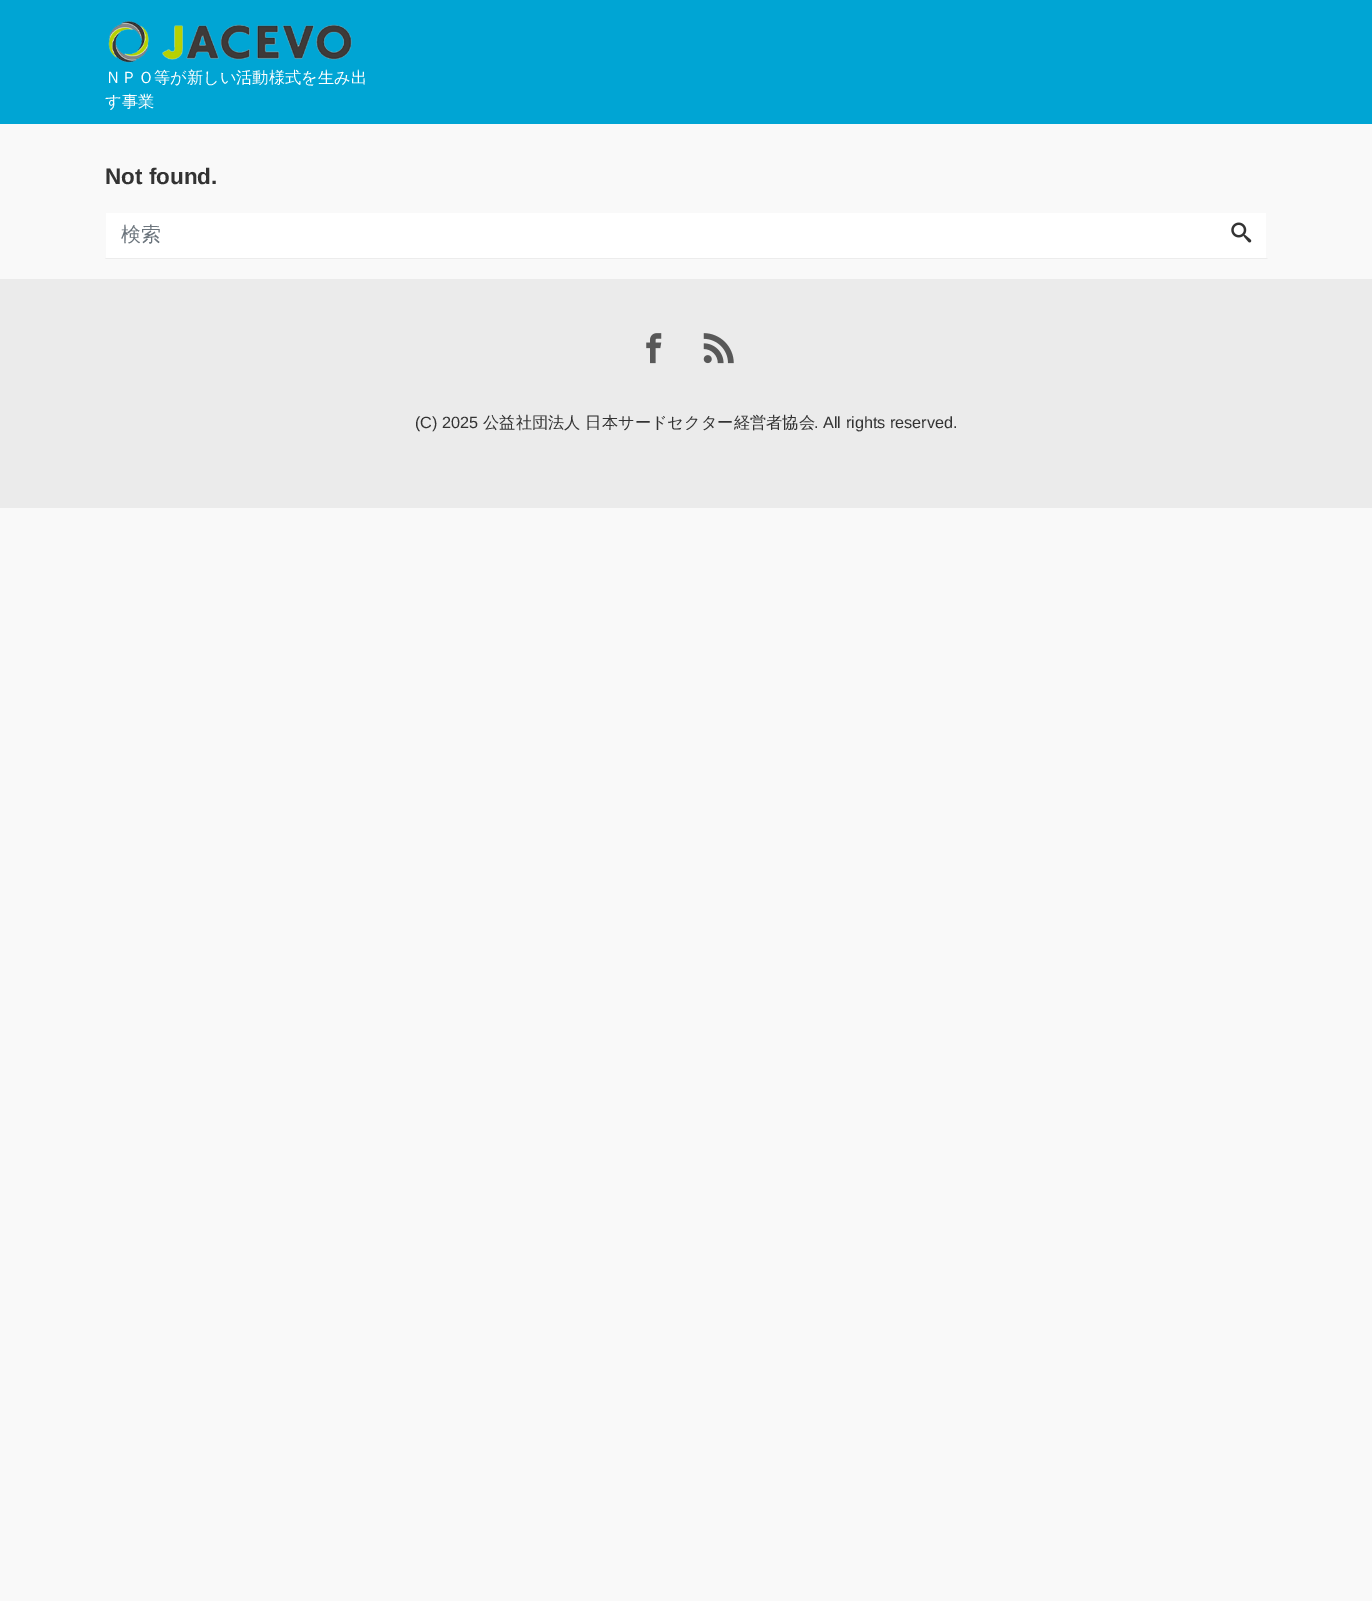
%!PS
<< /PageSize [1372 1601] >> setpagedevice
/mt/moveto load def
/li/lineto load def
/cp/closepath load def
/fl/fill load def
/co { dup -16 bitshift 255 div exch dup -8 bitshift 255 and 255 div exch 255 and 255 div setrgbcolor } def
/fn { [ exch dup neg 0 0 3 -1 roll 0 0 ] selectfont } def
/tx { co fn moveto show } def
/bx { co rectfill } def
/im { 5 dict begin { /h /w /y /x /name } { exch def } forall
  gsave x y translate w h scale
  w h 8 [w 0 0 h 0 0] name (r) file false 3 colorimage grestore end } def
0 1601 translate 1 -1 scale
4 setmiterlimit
0 0 1372 1601 16#F9F9F9 bx
0 0 1372 124 16#00A5D4 bx
(media/1.raw) 108 21 244 42 im
106 213 1160 45 16#FFFFFF bx
16#ECECEC co
1268 259 mt 105 259 li 106 258 li 1266 258 li cp fl
(media/2.raw) 1231 222 21 21 im
0 279 1372 229 16#EBEBEB bx
(media/3.raw) 646 333 16 31 im
(media/4.raw) 703 333 31 31 im
(ＮＰＯ等が新しい活動様式を生み出) 105 83 /WenQuanYiZenHei-Medium 16.25 16#FFFFFF tx
(す事業) 105 107 /WenQuanYiZenHei-Medium 16.25 16#FFFFFF tx
(Not found.) 105 184 /LiberationSans-Bold 22.5 16#333333 tx
(検索) 121 241 /WenQuanYiZenHei-Medium 20 16#6C757D tx
(\(C\) 2025) 415 428 /LiberationSans-Regular 16.25 16#333333 tx
(公益社団法人 日本サードセクター経営者協会) 483 428 /WenQuanYiZenHei-Medium 16.25 16#333333 tx
(. All rights reserved.) 814 428 /LiberationSans-Regular 16.25 16#333333 tx
showpage
